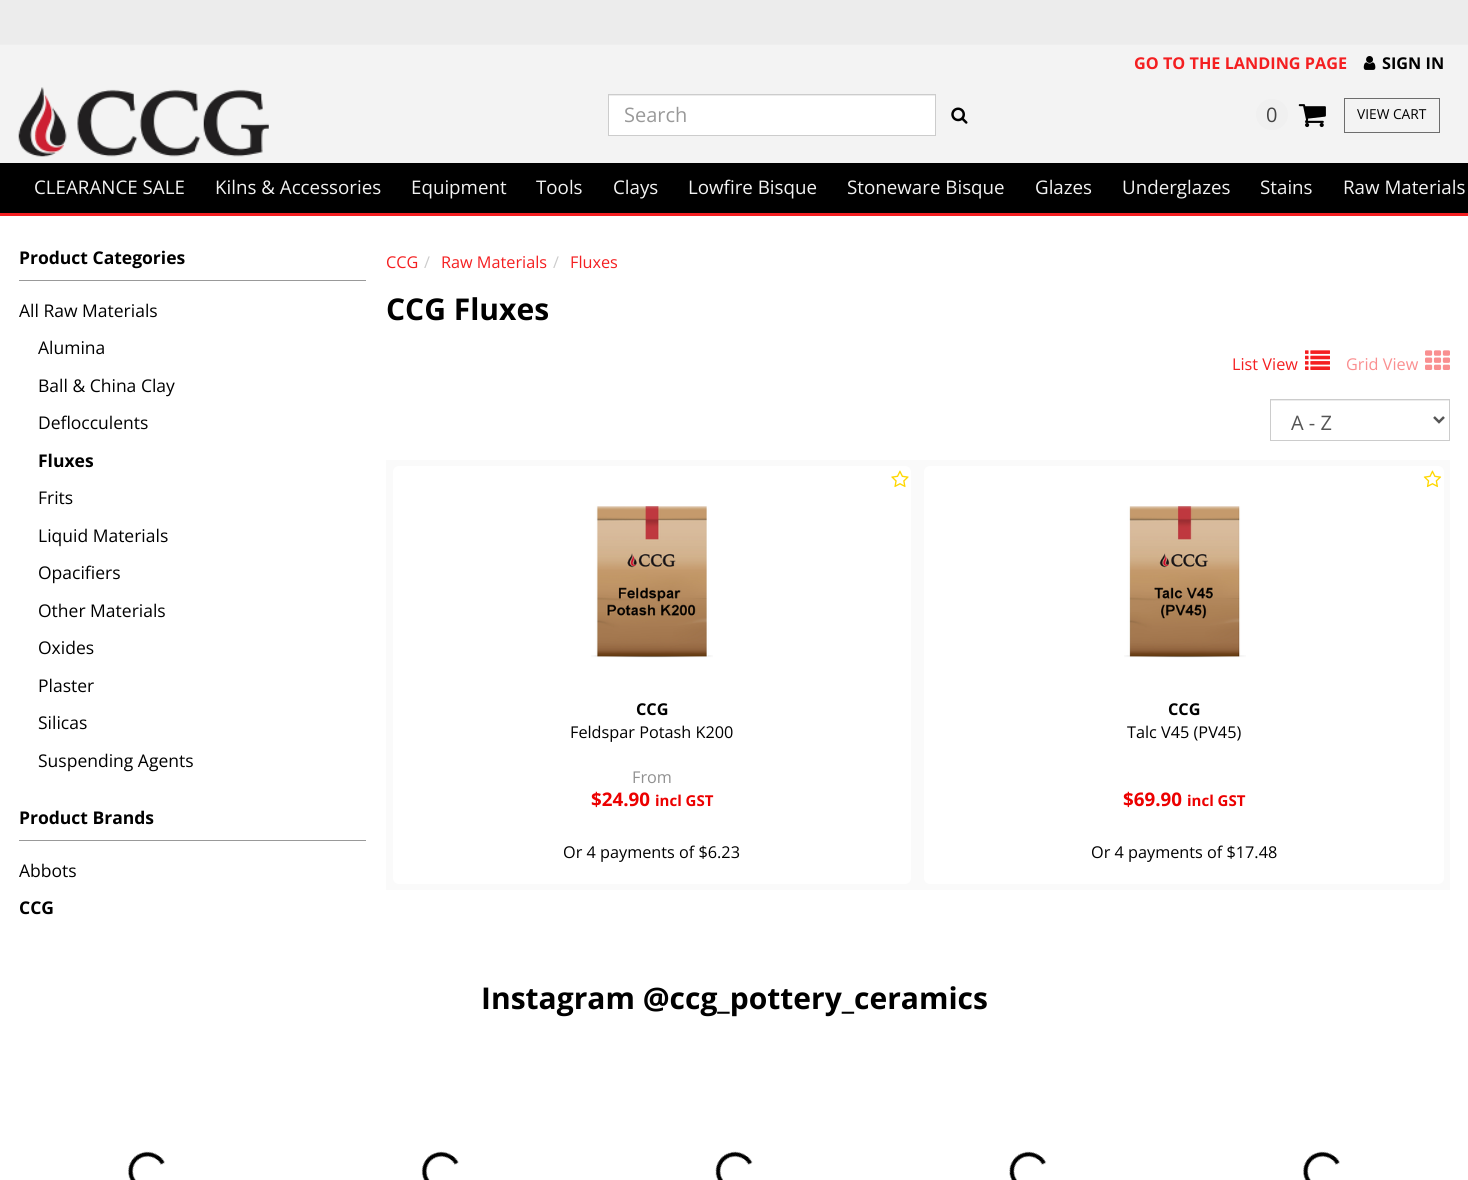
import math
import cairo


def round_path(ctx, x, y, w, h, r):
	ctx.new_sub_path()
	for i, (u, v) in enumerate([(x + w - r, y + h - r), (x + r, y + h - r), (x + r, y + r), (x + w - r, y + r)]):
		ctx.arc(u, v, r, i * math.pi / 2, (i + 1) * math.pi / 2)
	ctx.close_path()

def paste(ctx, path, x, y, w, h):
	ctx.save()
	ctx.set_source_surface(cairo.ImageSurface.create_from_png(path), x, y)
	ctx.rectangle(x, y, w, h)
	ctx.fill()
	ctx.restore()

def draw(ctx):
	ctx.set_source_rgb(1, 1, 1)
	ctx.paint()
	ctx.set_source_rgb(0.925, 0.925, 0.925)
	ctx.rectangle(0, 0, 1468, 44)
	ctx.fill()
	ctx.set_source_rgb(0.933, 0.933, 0.933)
	ctx.rectangle(0, 44, 1468, 1)
	ctx.fill()
	ctx.set_source_rgb(0.953, 0.953, 0.953)
	ctx.rectangle(0, 45, 1468, 118)
	ctx.fill()
	ctx.select_font_face('Open Sans', cairo.FONT_SLANT_NORMAL, cairo.FONT_WEIGHT_BOLD)
	ctx.set_font_size(16.25)
	ctx.set_source_rgb(0.957, 0.122, 0.129)
	ctx.move_to(1134, 69)
	ctx.show_text('GO TO THE LANDING PAGE')
	paste(ctx, 'media/1.png', 1363, 56, 13, 14)
	ctx.set_source_rgb(0, 0, 0)
	ctx.move_to(1382, 69)
	ctx.show_text('SIGN IN')
	paste(ctx, 'media/2.png', 18, 87, 251, 70)
	ctx.set_source_rgb(1, 1, 1)
	ctx.rectangle(609, 96, 326, 39)
	ctx.fill()
	ctx.set_source_rgb(0.925, 0.925, 0.925)
	ctx.rectangle(609, 95, 326, 1)
	ctx.fill()
	ctx.rectangle(608.5, 94.5, 327, 41)
	ctx.set_source_rgb(0.8, 0.8, 0.8)
	ctx.set_line_width(1)
	ctx.stroke()
	ctx.select_font_face('Open Sans')
	ctx.set_font_size(20)
	ctx.set_source_rgb(0.6, 0.6, 0.6)
	ctx.move_to(624, 122)
	ctx.show_text('Search')
	paste(ctx, 'media/3.png', 951, 107, 17, 17)
	ctx.set_source_rgb(0.941, 0.941, 0.941)
	round_path(ctx, 1256, 99, 32, 31, 15.5)
	ctx.fill()
	ctx.set_source_rgb(0.267, 0.267, 0.267)
	ctx.move_to(1266, 122)
	ctx.show_text('0')
	paste(ctx, 'media/4.png', 1298, 104, 28, 24)
	ctx.rectangle(1344.5, 98.5, 95, 34)
	ctx.set_source_rgb(0.427, 0.427, 0.427)
	ctx.stroke()
	ctx.set_font_size(13.75)
	ctx.set_source_rgb(0, 0, 0)
	ctx.move_to(1357, 119)
	ctx.show_text('VIEW CART')
	ctx.rectangle(0, 163, 1468, 50)
	ctx.fill()
	ctx.set_source_rgb(0.957, 0.122, 0.129)
	ctx.rectangle(0, 213, 1468, 3)
	ctx.fill()
	ctx.set_font_size(18.75)
	ctx.set_source_rgb(0.953, 0.953, 0.953)
	for x, y, s in [
		(34, 194, 'CLEARANCE SALE'),
		(215, 194, 'Kilns & Accessories'),
		(411, 194, 'Equipment'),
		(536, 194, 'Tools'),
		(613, 194, 'Clays'),
		(688, 194, 'Lowfire Bisque'),
		(847, 194, 'Stoneware Bisque'),
		(1035, 194, 'Glazes'),
		(1122, 194, 'Underglazes'),
		(1260, 194, 'Stains'),
		(1343, 194, 'Raw Materials'),
	]:
		ctx.move_to(x, y)
		ctx.show_text(s)
	ctx.set_source_rgb(0.6, 0.6, 0.6)
	ctx.rectangle(19, 280, 347, 1)
	ctx.fill()
	ctx.select_font_face('Open Sans', cairo.FONT_SLANT_NORMAL, cairo.FONT_WEIGHT_BOLD)
	ctx.set_font_size(17.5)
	ctx.set_source_rgb(0, 0, 0)
	ctx.move_to(19, 264)
	ctx.show_text('Product Categories')
	ctx.select_font_face('Open Sans')
	for x, y, s in [
		(19, 317, 'All Raw Materials'),
		(38, 354, 'Alumina'),
		(38, 392, 'Ball & China Clay'),
		(38, 429, 'Deflocculents'),
	]:
		ctx.move_to(x, y)
		ctx.show_text(s)
	ctx.select_font_face('Open Sans', cairo.FONT_SLANT_NORMAL, cairo.FONT_WEIGHT_BOLD)
	ctx.move_to(38, 467)
	ctx.show_text('Fluxes')
	ctx.select_font_face('Open Sans')
	for x, y, s in [
		(38, 504, 'Frits'),
		(38, 542, 'Liquid Materials'),
		(38, 579, 'Opacifiers'),
		(38, 617, 'Other Materials'),
		(38, 654, 'Oxides'),
		(38, 692, 'Plaster'),
		(38, 729, 'Silicas'),
		(38, 767, 'Suspending Agents'),
	]:
		ctx.move_to(x, y)
		ctx.show_text(s)
	ctx.set_source_rgb(0.6, 0.6, 0.6)
	ctx.rectangle(19, 840, 347, 1)
	ctx.fill()
	ctx.select_font_face('Open Sans', cairo.FONT_SLANT_NORMAL, cairo.FONT_WEIGHT_BOLD)
	ctx.set_source_rgb(0, 0, 0)
	ctx.move_to(19, 824)
	ctx.show_text('Product Brands')
	ctx.select_font_face('Open Sans')
	ctx.move_to(19, 877)
	ctx.show_text('Abbots')
	ctx.select_font_face('Open Sans', cairo.FONT_SLANT_NORMAL, cairo.FONT_WEIGHT_BOLD)
	ctx.move_to(19, 914)
	ctx.show_text('CCG')
	ctx.select_font_face('Open Sans')
	ctx.set_font_size(16.25)
	ctx.set_source_rgb(0.957, 0.122, 0.129)
	ctx.move_to(386, 268)
	ctx.show_text('CCG')
	ctx.set_source_rgb(0.8, 0.8, 0.8)
	ctx.move_to(424, 268)
	ctx.show_text('/')
	ctx.set_source_rgb(0.957, 0.122, 0.129)
	ctx.move_to(441, 268)
	ctx.show_text('Raw Materials')
	ctx.set_source_rgb(0.8, 0.8, 0.8)
	ctx.move_to(553, 268)
	ctx.show_text('/')
	ctx.set_source_rgb(0.957, 0.122, 0.129)
	ctx.move_to(570, 268)
	ctx.show_text('Fluxes')
	ctx.select_font_face('Open Sans', cairo.FONT_SLANT_NORMAL, cairo.FONT_WEIGHT_BOLD)
	ctx.set_font_size(30)
	ctx.set_source_rgb(0, 0, 0)
	ctx.move_to(386, 320)
	ctx.show_text('CCG Fluxes')
	ctx.select_font_face('Open Sans')
	ctx.set_font_size(16.25)
	ctx.set_source_rgb(0.957, 0.122, 0.129)
	ctx.move_to(1232, 370)
	ctx.show_text('List View')
	paste(ctx, 'media/5.png', 1305, 350, 25, 20)
	ctx.set_source_rgb(0.98, 0.561, 0.565)
	ctx.move_to(1346, 370)
	ctx.show_text('Grid View')
	paste(ctx, 'media/6.png', 1425, 350, 25, 20)
	ctx.set_source_rgb(0.925, 0.925, 0.925)
	ctx.rectangle(1271, 400, 178, 1)
	ctx.fill()
	ctx.rectangle(1270.5, 399.5, 179, 41)
	ctx.set_source_rgb(0.8, 0.8, 0.8)
	ctx.stroke()
	ctx.new_path()
	ctx.move_to(1434, 417)
	ctx.line_to(1439, 422)
	ctx.line_to(1444, 417)
	ctx.set_source_rgb(0.333, 0.333, 0.333)
	ctx.set_line_width(2.5)
	ctx.stroke()
	ctx.set_font_size(20)
	ctx.move_to(1291, 430)
	ctx.show_text('A - Z')
	ctx.set_source_rgb(0.98, 0.98, 0.98)
	ctx.rectangle(386, 460, 1064, 430)
	ctx.fill()
	ctx.set_source_rgb(1, 1, 1)
	round_path(ctx, 393, 466, 518, 418, 6)
	ctx.fill()
	paste(ctx, 'media/7.png', 891, 470, 18, 18)
	paste(ctx, 'media/8.png', 591, 506, 122, 152)
	ctx.select_font_face('Open Sans', cairo.FONT_SLANT_NORMAL, cairo.FONT_WEIGHT_BOLD)
	ctx.set_font_size(16.25)
	ctx.set_source_rgb(0, 0, 0)
	ctx.move_to(636, 715)
	ctx.show_text('CCG')
	ctx.select_font_face('Open Sans')
	ctx.move_to(570, 738)
	ctx.show_text('Feldspar Potash K200')
	ctx.set_source_rgb(0.565, 0.565, 0.565)
	ctx.move_to(632, 783)
	ctx.show_text('From')
	ctx.select_font_face('Open Sans', cairo.FONT_SLANT_NORMAL, cairo.FONT_WEIGHT_BOLD)
	ctx.set_font_size(18.75)
	ctx.set_source_rgb(0.922, 0, 0)
	ctx.move_to(591, 806)
	ctx.show_text('$24.90')
	ctx.set_font_size(15)
	ctx.move_to(655, 806)
	ctx.show_text('incl GST')
	ctx.select_font_face('Open Sans')
	ctx.set_font_size(16.25)
	ctx.set_source_rgb(0, 0, 0)
	ctx.move_to(563, 858)
	ctx.show_text('Or 4 payments of $6.23')
	ctx.set_source_rgb(1, 1, 1)
	round_path(ctx, 924, 466, 520, 418, 6)
	ctx.fill()
	paste(ctx, 'media/9.png', 1423, 470, 19, 18)
	paste(ctx, 'media/10.png', 1124, 506, 122, 152)
	ctx.select_font_face('Open Sans', cairo.FONT_SLANT_NORMAL, cairo.FONT_WEIGHT_BOLD)
	ctx.set_source_rgb(0, 0, 0)
	ctx.move_to(1168, 715)
	ctx.show_text('CCG')
	ctx.select_font_face('Open Sans')
	ctx.move_to(1127, 738)
	ctx.show_text('Talc V45 (PV45)')
	ctx.select_font_face('Open Sans', cairo.FONT_SLANT_NORMAL, cairo.FONT_WEIGHT_BOLD)
	ctx.set_font_size(18.75)
	ctx.set_source_rgb(0.922, 0, 0)
	ctx.move_to(1123, 806)
	ctx.show_text('$69.90')
	ctx.set_font_size(15)
	ctx.move_to(1187, 806)
	ctx.show_text('incl GST')
	ctx.select_font_face('Open Sans')
	ctx.set_font_size(16.25)
	ctx.set_source_rgb(0, 0, 0)
	ctx.move_to(1091, 858)
	ctx.show_text('Or 4 payments of $17.48')
	ctx.select_font_face('Open Sans', cairo.FONT_SLANT_NORMAL, cairo.FONT_WEIGHT_BOLD)
	ctx.set_font_size(30)
	ctx.move_to(481, 1009)
	ctx.show_text('Instagram @ccg_pottery_ceramics')
	paste(ctx, 'media/11.png', 128, 1151, 1212, 29)


surface = cairo.ImageSurface(cairo.FORMAT_RGB24, 1468, 1180)
ctx = cairo.Context(surface)
options = cairo.FontOptions()
options.set_hint_metrics(cairo.HINT_METRICS_OFF)
options.set_hint_style(cairo.HINT_STYLE_NONE)
ctx.set_font_options(options)
ctx.set_miter_limit(4)
draw(ctx)
surface.write_to_png('image.png')
